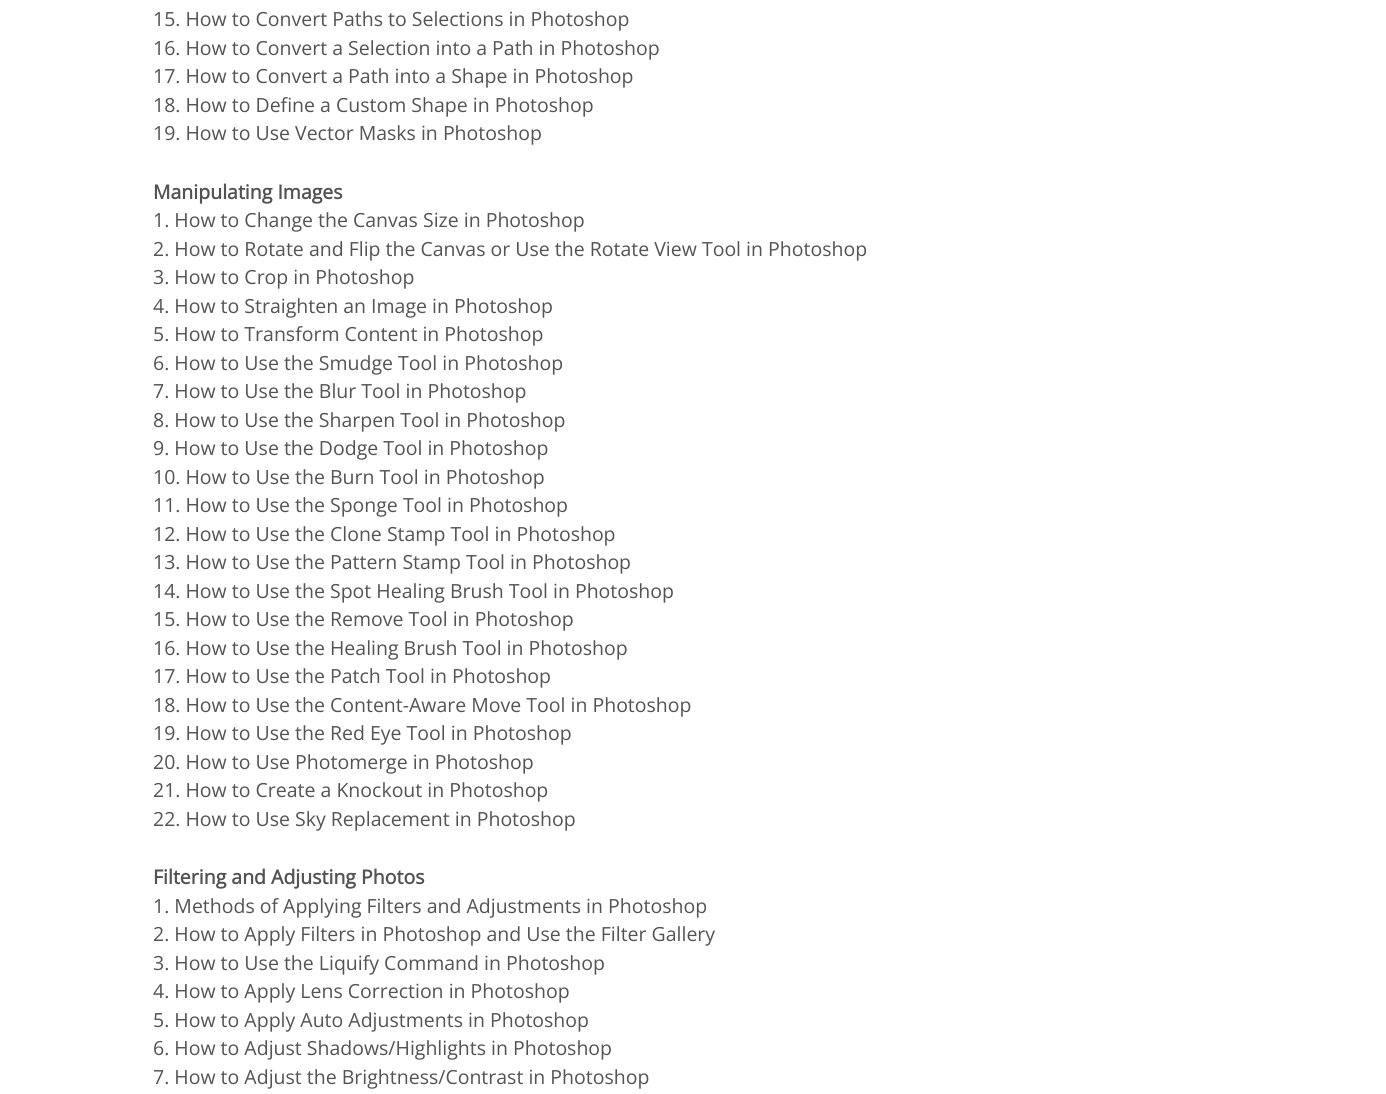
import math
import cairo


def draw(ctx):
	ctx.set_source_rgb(1, 1, 1)
	ctx.paint()
	ctx.select_font_face('Open Sans')
	ctx.set_font_size(19.5)
	ctx.set_source_rgb(0.325, 0.325, 0.325)
	for x, y, s in [
		(153, 26, '15. How to Convert Paths to Selections in Photoshop'),
		(153, 55, '16. How to Convert a Selection into a Path in Photoshop'),
		(153, 83, '17. How to Convert a Path into a Shape in Photoshop'),
		(153, 112, '18. How to Define a Custom Shape in Photoshop'),
		(153, 140, '19. How to Use Vector Masks in Photoshop'),
	]:
		ctx.move_to(x, y)
		ctx.show_text(s)
	ctx.select_font_face('Open Sans', cairo.FONT_SLANT_NORMAL, cairo.FONT_WEIGHT_BOLD)
	ctx.move_to(153, 199)
	ctx.show_text('Manipulating Images')
	ctx.select_font_face('Open Sans')
	for x, y, s in [
		(153, 227, '1. How to Change the Canvas Size in Photoshop'),
		(153, 256, '2. How to Rotate and Flip the Canvas or Use the Rotate View Tool in Photoshop'),
		(153, 284, '3. How to Crop in Photoshop'),
		(153, 313, '4. How to Straighten an Image in Photoshop'),
		(153, 341, '5. How to Transform Content in Photoshop'),
		(153, 370, '6. How to Use the Smudge Tool in Photoshop'),
		(153, 398, '7. How to Use the Blur Tool in Photoshop'),
		(153, 427, '8. How to Use the Sharpen Tool in Photoshop'),
		(153, 455, '9. How to Use the Dodge Tool in Photoshop'),
		(153, 484, '10. How to Use the Burn Tool in Photoshop'),
		(153, 512, '11. How to Use the Sponge Tool in Photoshop'),
		(153, 541, '12. How to Use the Clone Stamp Tool in Photoshop'),
		(153, 569, '13. How to Use the Pattern Stamp Tool in Photoshop'),
		(153, 598, '14. How to Use the Spot Healing Brush Tool in Photoshop'),
		(153, 626, '15. How to Use the Remove Tool in Photoshop'),
		(153, 655, '16. How to Use the Healing Brush Tool in Photoshop'),
		(153, 683, '17. How to Use the Patch Tool in Photoshop'),
		(153, 712, '18. How to Use the Content-Aware Move Tool in Photoshop'),
		(153, 740, '19. How to Use the Red Eye Tool in Photoshop'),
		(153, 769, '20. How to Use Photomerge in Photoshop'),
		(153, 797, '21. How to Create a Knockout in Photoshop'),
		(153, 826, '22. How to Use Sky Replacement in Photoshop'),
	]:
		ctx.move_to(x, y)
		ctx.show_text(s)
	ctx.select_font_face('Open Sans', cairo.FONT_SLANT_NORMAL, cairo.FONT_WEIGHT_BOLD)
	ctx.move_to(153, 884)
	ctx.show_text('Filtering and Adjusting Photos')
	ctx.select_font_face('Open Sans')
	for x, y, s in [
		(153, 913, '1. Methods of Applying Filters and Adjustments in Photoshop'),
		(153, 941, '2. How to Apply Filters in Photoshop and Use the Filter Gallery'),
		(153, 970, '3. How to Use the Liquify Command in Photoshop'),
		(153, 998, '4. How to Apply Lens Correction in Photoshop'),
		(153, 1027, '5. How to Apply Auto Adjustments in Photoshop'),
		(153, 1055, '6. How to Adjust Shadows/Highlights in Photoshop'),
		(153, 1084, '7. How to Adjust the Brightness/Contrast in Photoshop'),
	]:
		ctx.move_to(x, y)
		ctx.show_text(s)


surface = cairo.ImageSurface(cairo.FORMAT_RGB24, 1386, 1094)
ctx = cairo.Context(surface)
options = cairo.FontOptions()
options.set_hint_metrics(cairo.HINT_METRICS_OFF)
options.set_hint_style(cairo.HINT_STYLE_NONE)
ctx.set_font_options(options)
ctx.set_miter_limit(4)
draw(ctx)
surface.write_to_png('image.png')
